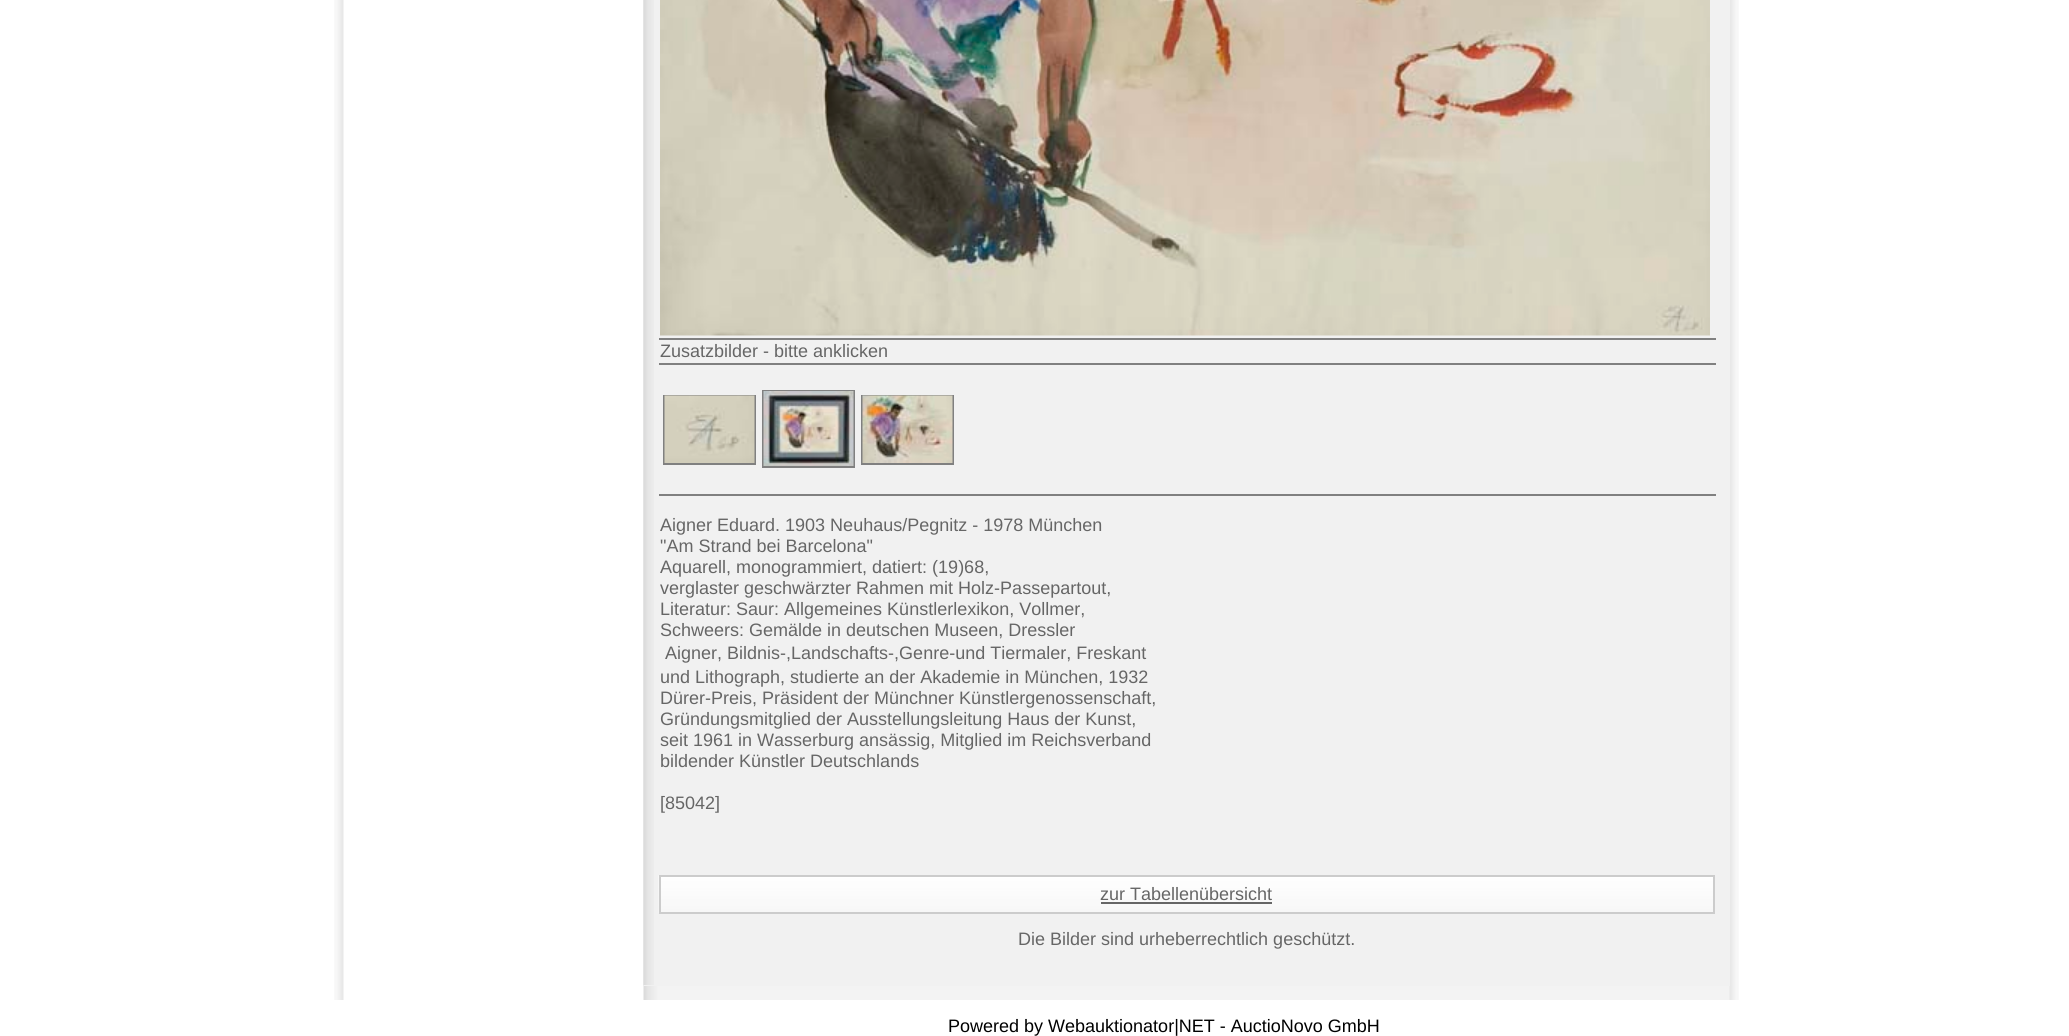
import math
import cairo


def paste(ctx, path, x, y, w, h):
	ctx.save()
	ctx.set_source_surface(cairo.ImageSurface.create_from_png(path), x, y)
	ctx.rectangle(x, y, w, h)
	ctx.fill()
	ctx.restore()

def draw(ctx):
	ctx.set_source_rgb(1, 1, 1)
	ctx.paint()
	paste(ctx, 'media/1.png', 334, 0, 1405, 1000)
	ctx.set_source_rgb(0.945, 0.945, 0.945)
	ctx.rectangle(644, 0, 1086, 986)
	ctx.fill()
	paste(ctx, 'media/2.png', 643, 0, 11, 985)
	paste(ctx, 'media/3.png', 660, 0, 1050, 336)
	ctx.set_source_rgb(0.502, 0.502, 0.502)
	ctx.rectangle(659, 338, 1057, 2)
	ctx.fill()
	ctx.select_font_face('Liberation Sans')
	ctx.set_font_size(18)
	ctx.set_source_rgb(0.4, 0.4, 0.4)
	ctx.move_to(660, 357)
	ctx.show_text('Zusatzbilder - bitte anklicken')
	ctx.set_source_rgb(0.502, 0.502, 0.502)
	ctx.rectangle(659, 363, 1057, 2)
	ctx.fill()
	ctx.rectangle(659, 494, 1057, 2)
	ctx.fill()
	ctx.rectangle(664, 396, 91, 68)
	ctx.stroke()
	paste(ctx, 'media/4.png', 664, 395, 91, 68)
	ctx.rectangle(763, 391, 91, 76)
	ctx.stroke()
	paste(ctx, 'media/5.png', 763, 391, 91, 75)
	ctx.rectangle(862, 396, 91, 68)
	ctx.stroke()
	paste(ctx, 'media/6.png', 862, 395, 91, 68)
	ctx.set_source_rgb(0.4, 0.4, 0.4)
	for x, y, s in [
		(660, 531, 'Aigner Eduard. 1903 Neuhaus/Pegnitz - 1978 München'),
		(660, 552, '"Am Strand bei Barcelona"'),
		(660, 573, 'Aquarell, monogrammiert, datiert: (19)68,'),
		(660, 594, 'verglaster geschwärzter Rahmen mit Holz-Passepartout,'),
		(660, 615, 'Literatur: Saur: Allgemeines Künstlerlexikon, Vollmer,'),
		(660, 636, 'Schweers: Gemälde in deutschen Museen, Dressler'),
		(665, 659, 'Aigner, Bildnis-,Landschafts-,Genre-und Tiermaler, Freskant'),
		(660, 683, 'und Lithograph, studierte an der Akademie in München, 1932'),
		(660, 704, 'Dürer-Preis, Präsident der Münchner Künstlergenossenschaft,'),
		(660, 725, 'Gründungsmitglied der Ausstellungsleitung Haus der Kunst,'),
		(660, 746, 'seit 1961 in Wasserburg ansässig, Mitglied im Reichsverband'),
		(660, 767, 'bildender Künstler Deutschlands'),
		(660, 809, '[85042]'),
	]:
		ctx.move_to(x, y)
		ctx.show_text(s)
	paste(ctx, 'media/7.png', 658, 875, 1055, 38)
	ctx.rectangle(660, 876, 1054, 37)
	ctx.set_source_rgb(0.8, 0.8, 0.8)
	ctx.stroke()
	ctx.set_source_rgb(0.4, 0.4, 0.4)
	ctx.move_to(1100, 900)
	ctx.show_text('zur Tabellenübersicht')
	ctx.rectangle(1101, 902, 171, 2)
	ctx.fill()
	ctx.move_to(1018, 945)
	ctx.show_text('Die Bilder sind urheberrechtlich geschützt.')
	ctx.set_source_rgb(0, 0, 0)
	ctx.move_to(948, 1032)
	ctx.show_text('Powered by Webauktionator|NET - AuctioNovo GmbH')


surface = cairo.ImageSurface(cairo.FORMAT_RGB24, 2069, 1036)
ctx = cairo.Context(surface)
options = cairo.FontOptions()
options.set_hint_metrics(cairo.HINT_METRICS_OFF)
options.set_hint_style(cairo.HINT_STYLE_NONE)
ctx.set_font_options(options)
ctx.set_miter_limit(4)
draw(ctx)
surface.write_to_png('image.png')
